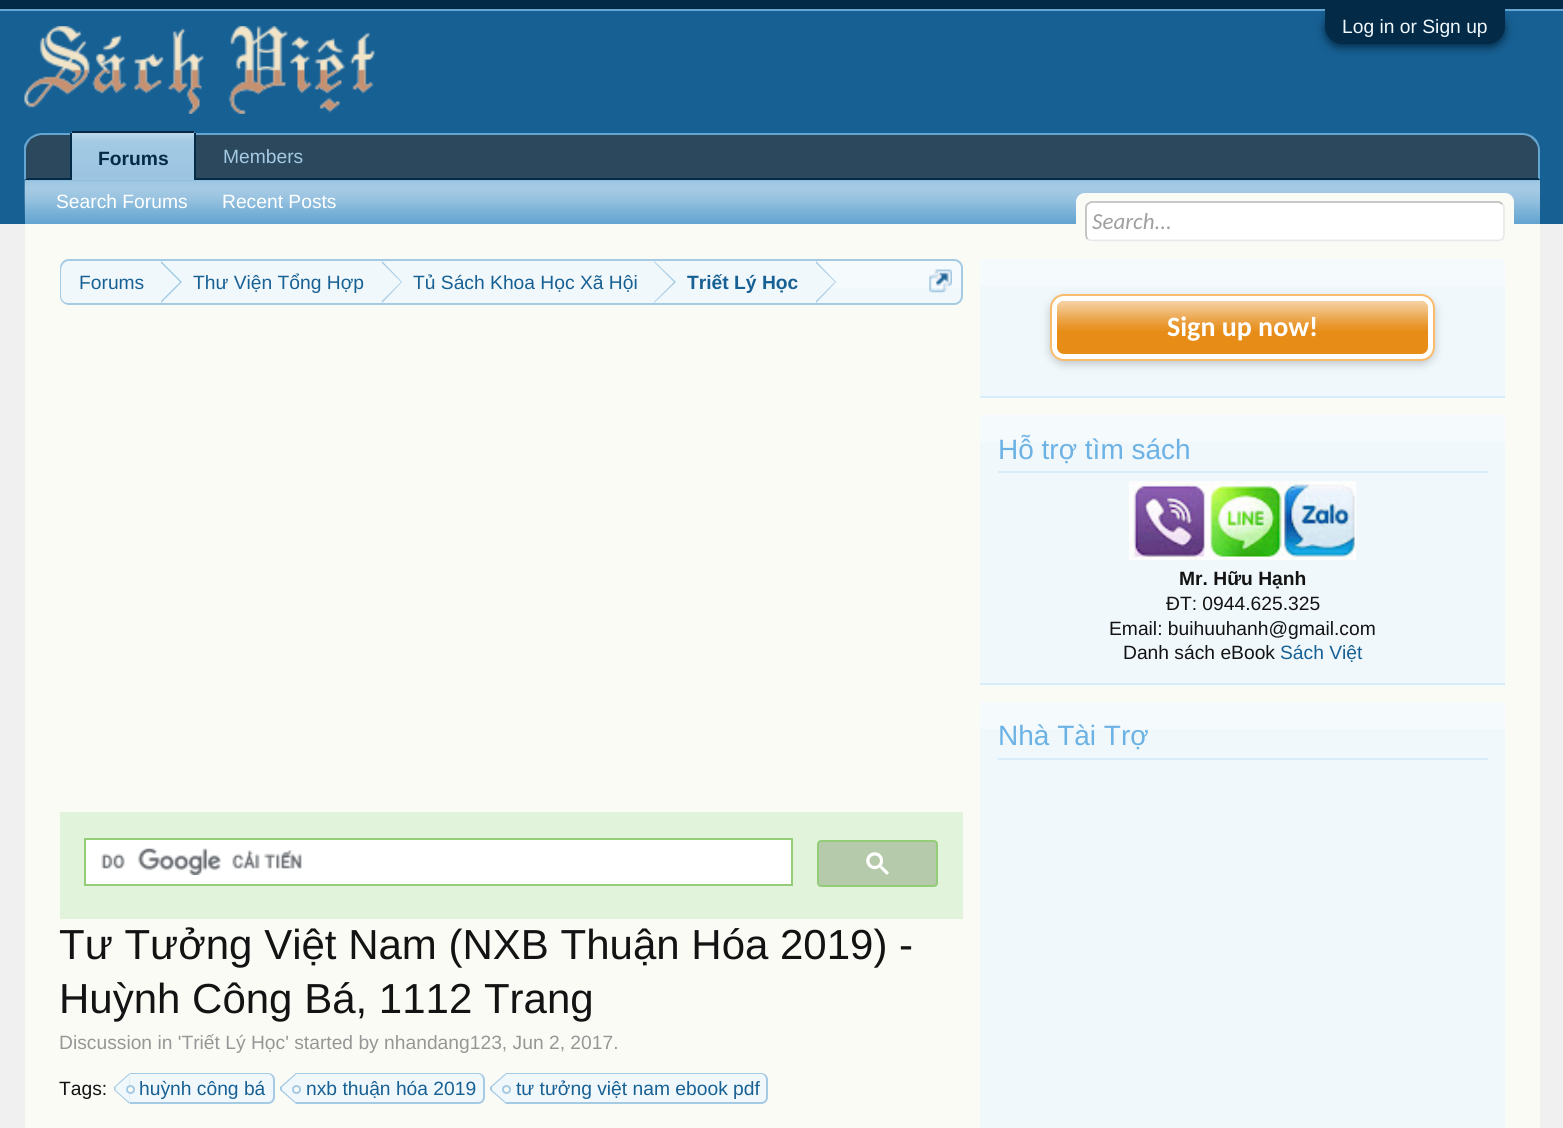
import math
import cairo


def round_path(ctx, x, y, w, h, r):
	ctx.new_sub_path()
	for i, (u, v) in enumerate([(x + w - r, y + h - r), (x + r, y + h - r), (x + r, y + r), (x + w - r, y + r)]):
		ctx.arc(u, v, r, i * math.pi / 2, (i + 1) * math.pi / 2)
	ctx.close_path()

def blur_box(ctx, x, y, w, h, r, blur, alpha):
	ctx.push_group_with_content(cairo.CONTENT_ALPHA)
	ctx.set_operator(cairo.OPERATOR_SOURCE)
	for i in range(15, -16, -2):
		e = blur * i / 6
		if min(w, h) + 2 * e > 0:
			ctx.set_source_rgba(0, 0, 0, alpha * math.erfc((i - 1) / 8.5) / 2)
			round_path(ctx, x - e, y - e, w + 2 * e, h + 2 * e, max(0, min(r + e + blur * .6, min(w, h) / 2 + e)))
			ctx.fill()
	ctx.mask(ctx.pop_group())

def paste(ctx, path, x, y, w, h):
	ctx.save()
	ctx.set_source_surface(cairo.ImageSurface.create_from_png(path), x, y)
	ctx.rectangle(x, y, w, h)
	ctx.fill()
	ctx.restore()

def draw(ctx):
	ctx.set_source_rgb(0.941, 0.941, 0.941)
	ctx.paint()
	ctx.set_source_rgb(0.012, 0.165, 0.275)
	ctx.rectangle(0, 0, 1563, 9)
	ctx.fill()
	ctx.set_source_rgb(0.396, 0.647, 0.82)
	ctx.rectangle(0, 9, 1563, 2)
	ctx.fill()
	ctx.set_source_rgb(0.09, 0.376, 0.576)
	ctx.rectangle(0, 11, 1563, 213)
	ctx.fill()
	ctx.set_source_rgb(0.012, 0.165, 0.275)
	blur_box(ctx, 1325, 12, 180, 35, 17.5, 4.5, 1)
	ctx.set_source_rgb(0.012, 0.165, 0.275)
	ctx.new_path()
	ctx.move_to(1325, 9)
	ctx.line_to(1505, 9)
	ctx.line_to(1505, 26.5)
	ctx.curve_to(1505, 36, 1497, 44, 1487.5, 44)
	ctx.line_to(1342.5, 44)
	ctx.curve_to(1333, 44, 1325, 36, 1325, 26.5)
	ctx.close_path()
	ctx.fill()
	ctx.select_font_face('Liberation Sans')
	ctx.set_font_size(19.25)
	ctx.set_source_rgb(0.941, 0.969, 0.988)
	ctx.move_to(1342, 33)
	ctx.show_text('Log in or Sign up')
	paste(ctx, 'media/1.png', 24, 26, 351, 88)
	ctx.set_source_rgb(0.169, 0.282, 0.361)
	ctx.new_path()
	ctx.move_to(43, 133)
	ctx.line_to(1522, 133)
	ctx.curve_to(1532, 133, 1540, 141, 1540, 151)
	ctx.line_to(1540, 180)
	ctx.line_to(25, 180)
	ctx.line_to(25, 151)
	ctx.curve_to(25, 141, 33, 133, 43, 133)
	ctx.close_path()
	ctx.fill()
	ctx.set_source_rgb(0.396, 0.647, 0.82)
	ctx.new_path()
	ctx.move_to(42, 133)
	ctx.curve_to(37, 133, 33, 135, 29, 138)
	ctx.line_to(31, 139)
	ctx.curve_to(34, 137, 38, 135, 42, 135)
	ctx.line_to(1522, 135)
	ctx.curve_to(1527, 135, 1531, 137, 1533, 140)
	ctx.line_to(1535, 138)
	ctx.curve_to(1532, 135, 1527, 133, 1522, 133)
	ctx.close_path()
	ctx.fill()
	ctx.new_path()
	ctx.move_to(1540, 180)
	ctx.line_to(1540, 150)
	ctx.curve_to(1540, 146, 1538, 141, 1535, 138)
	ctx.line_to(1533, 140)
	ctx.curve_to(1536, 142, 1538, 146, 1538, 150)
	ctx.line_to(1538, 178)
	ctx.close_path()
	ctx.fill()
	ctx.set_source_rgb(0.012, 0.165, 0.275)
	ctx.new_path()
	ctx.move_to(1540, 180)
	ctx.line_to(25, 180)
	ctx.line_to(27, 178)
	ctx.line_to(1538, 178)
	ctx.close_path()
	ctx.fill()
	ctx.set_source_rgb(0.396, 0.647, 0.82)
	ctx.new_path()
	ctx.move_to(24, 146)
	ctx.curve_to(25, 143, 27, 140, 29, 138)
	ctx.line_to(31, 139)
	ctx.curve_to(28, 142, 26, 146, 26, 150)
	ctx.line_to(26, 178)
	ctx.line_to(27, 178)
	ctx.line_to(24, 180)
	ctx.close_path()
	ctx.fill()
	ctx.set_source_rgb(0.647, 0.792, 0.894)
	ctx.move_to(223, 163)
	ctx.show_text('Members')
	ctx.set_source_rgb(0.396, 0.647, 0.82)
	ctx.new_path()
	ctx.move_to(74, 131)
	ctx.line_to(192, 131)
	ctx.curve_to(194, 131, 196, 133, 196, 135)
	ctx.line_to(196, 180)
	ctx.line_to(70, 180)
	ctx.line_to(70, 135)
	ctx.curve_to(70, 133, 72, 131, 74, 131)
	ctx.close_path()
	ctx.fill()
	paste(ctx, 'media/2.png', 72, 133, 122, 47)
	ctx.set_source_rgb(0.012, 0.165, 0.275)
	ctx.rectangle(72, 131, 122, 2)
	ctx.rectangle(194, 133, 2, 47)
	ctx.rectangle(70, 133, 2, 47)
	ctx.fill()
	ctx.select_font_face('Liberation Sans', cairo.FONT_SLANT_NORMAL, cairo.FONT_WEIGHT_BOLD)
	ctx.move_to(98, 165)
	ctx.show_text('Forums')
	ctx.set_source_rgb(0.396, 0.647, 0.82)
	ctx.rectangle(25, 180, 1515, 44)
	ctx.fill()
	paste(ctx, 'media/3.png', 24, 180, 1516, 42)
	ctx.select_font_face('Liberation Sans')
	ctx.set_source_rgb(1, 1, 1)
	ctx.move_to(56, 208)
	ctx.show_text('Search Forums')
	ctx.move_to(222, 208)
	ctx.show_text('Recent Posts')
	ctx.set_source_rgb(0.984, 0.984, 0.961)
	ctx.rectangle(25, 224, 1515, 904)
	ctx.fill()
	round_path(ctx, 1076, 193, 438, 49, 9)
	ctx.fill()
	ctx.rectangle(1076, 201, 438, 1)
	ctx.fill()
	ctx.set_source_rgb(1, 1, 1)
	round_path(ctx, 1085, 201, 420, 41, 7)
	ctx.fill()
	ctx.new_path()
	ctx.move_to(1502.5, 204)
	ctx.curve_to(1503.5, 205, 1504, 206.5, 1504, 208)
	ctx.line_to(1504, 234.5)
	ctx.curve_to(1504, 236, 1503.5, 237.5, 1502.5, 239)
	ctx.curve_to(1501, 240, 1499.5, 240.5, 1498, 240.5)
	ctx.line_to(1092, 240.5)
	ctx.curve_to(1090.5, 240.5, 1089, 240, 1087.5, 239)
	ctx.set_source_rgb(0.914, 0.914, 0.914)
	ctx.set_line_width(1.8)
	ctx.stroke()
	ctx.new_path()
	ctx.move_to(1087.5, 239)
	ctx.curve_to(1086.5, 237.5, 1086, 236, 1086, 234.5)
	ctx.line_to(1086, 208)
	ctx.curve_to(1086, 206.5, 1086.5, 205, 1087.5, 204)
	ctx.curve_to(1089, 203, 1090.5, 202, 1092, 202)
	ctx.line_to(1498, 202)
	ctx.curve_to(1499.5, 202, 1501, 203, 1502.5, 204)
	ctx.set_source_rgb(0.753, 0.753, 0.753)
	ctx.stroke()
	ctx.select_font_face('Carlito', cairo.FONT_SLANT_ITALIC)
	ctx.set_font_size(23)
	ctx.set_source_rgb(0.627, 0.627, 0.627)
	ctx.move_to(1092, 229)
	ctx.show_text('Search...')
	ctx.set_source_rgb(0.941, 0.969, 0.988)
	round_path(ctx, 60, 259, 903, 46, 9)
	ctx.fill()
	paste(ctx, 'media/4.png', 60, 261, 902, 27)
	round_path(ctx, 61, 260, 901, 44, 8)
	ctx.set_source_rgb(0.647, 0.792, 0.894)
	ctx.set_line_width(2)
	ctx.stroke()
	ctx.save()
	round_path(ctx, 61, 261, 900, 42, 7)
	ctx.clip()
	ctx.set_source_rgb(0.941, 0.969, 0.988)
	ctx.new_path()
	ctx.move_to(70, 261)
	ctx.line_to(161, 261)
	ctx.line_to(161, 305)
	ctx.line_to(70, 305)
	ctx.curve_to(65, 305, 61, 301, 61, 296)
	ctx.line_to(61, 270)
	ctx.curve_to(61, 265, 65, 261, 70, 261)
	ctx.close_path()
	ctx.fill()
	ctx.restore()
	ctx.select_font_face('Liberation Sans')
	ctx.set_font_size(19.25)
	ctx.set_source_rgb(0.09, 0.376, 0.576)
	ctx.move_to(79, 289)
	ctx.show_text('Forums')
	ctx.set_source_rgb(0.941, 0.969, 0.988)
	ctx.rectangle(161, 261, 655, 27)
	ctx.fill()
	ctx.set_source_rgb(0.647, 0.792, 0.894)
	ctx.new_path()
	ctx.move_to(161, 303)
	ctx.line_to(161, 261)
	ctx.line_to(182, 282)
	ctx.close_path()
	ctx.fill()
	ctx.set_source_rgb(0.941, 0.969, 0.988)
	ctx.new_path()
	ctx.move_to(159, 303)
	ctx.line_to(159, 261)
	ctx.line_to(180, 282)
	ctx.close_path()
	ctx.fill()
	ctx.set_source_rgb(0.09, 0.376, 0.576)
	ctx.move_to(193, 289)
	ctx.show_text('Thư Viện Tổng Hợp')
	ctx.set_source_rgb(0.647, 0.792, 0.894)
	ctx.new_path()
	ctx.move_to(382, 303)
	ctx.line_to(382, 261)
	ctx.line_to(402, 282)
	ctx.close_path()
	ctx.fill()
	ctx.set_source_rgb(0.941, 0.969, 0.988)
	ctx.new_path()
	ctx.move_to(380, 303)
	ctx.line_to(380, 261)
	ctx.line_to(401, 282)
	ctx.close_path()
	ctx.fill()
	ctx.set_source_rgb(0.09, 0.376, 0.576)
	ctx.move_to(413, 289)
	ctx.show_text('Tủ Sách Khoa Học Xã Hội')
	ctx.set_source_rgb(0.647, 0.792, 0.894)
	ctx.new_path()
	ctx.move_to(654, 303)
	ctx.line_to(654, 261)
	ctx.line_to(676, 282)
	ctx.close_path()
	ctx.fill()
	ctx.set_source_rgb(0.941, 0.969, 0.988)
	ctx.new_path()
	ctx.move_to(653, 303)
	ctx.line_to(653, 261)
	ctx.line_to(674, 282)
	ctx.close_path()
	ctx.fill()
	ctx.select_font_face('Liberation Sans', cairo.FONT_SLANT_NORMAL, cairo.FONT_WEIGHT_BOLD)
	ctx.set_source_rgb(0.09, 0.376, 0.576)
	ctx.move_to(687, 289)
	ctx.show_text('Triết Lý Học')
	ctx.set_source_rgb(0.647, 0.792, 0.894)
	ctx.new_path()
	ctx.move_to(816, 303)
	ctx.line_to(816, 261)
	ctx.line_to(836, 282)
	ctx.close_path()
	ctx.fill()
	ctx.set_source_rgb(0.941, 0.969, 0.988)
	ctx.new_path()
	ctx.move_to(814, 303)
	ctx.line_to(814, 261)
	ctx.line_to(835, 282)
	ctx.close_path()
	ctx.fill()
	paste(ctx, 'media/5.png', 929, 269, 23, 24)
	ctx.set_source_rgb(0.882, 0.953, 0.855)
	ctx.rectangle(60, 812, 903, 107)
	ctx.fill()
	ctx.set_source_rgb(1, 1, 1)
	ctx.rectangle(85, 839, 707, 46)
	ctx.fill_preserve()
	ctx.set_source_rgb(0.58, 0.8, 0.478)
	ctx.stroke()
	paste(ctx, 'media/6.png', 101, 848, 201, 27)
	ctx.set_source_rgb(0.71, 0.788, 0.671)
	round_path(ctx, 818, 841, 119, 45, 3)
	ctx.fill_preserve()
	ctx.set_source_rgb(0.58, 0.8, 0.478)
	ctx.stroke()
	paste(ctx, 'media/7.png', 866, 852, 23, 23)
	ctx.select_font_face('Liberation Sans')
	ctx.set_font_size(42)
	ctx.set_source_rgb(0.078, 0.078, 0.078)
	ctx.move_to(59, 959)
	ctx.show_text('Tư Tưởng Việt Nam (NXB Thuận Hóa 2019) -')
	ctx.move_to(59, 1013)
	ctx.show_text('Huỳnh Công Bá, 1112 Trang')
	ctx.set_font_size(19.25)
	ctx.set_source_rgb(0.588, 0.588, 0.588)
	ctx.move_to(59, 1049)
	ctx.show_text('Discussion in \'Triết Lý Học\' started by nhandang123, Jun 2, 2017.')
	ctx.set_source_rgb(0.078, 0.078, 0.078)
	ctx.move_to(59, 1095)
	ctx.show_text('Tags:')
	ctx.set_source_rgb(0.941, 0.969, 0.988)
	ctx.new_path()
	ctx.move_to(130, 1073)
	ctx.line_to(268, 1073)
	ctx.curve_to(272, 1073, 275, 1076, 275, 1080)
	ctx.line_to(275, 1097)
	ctx.curve_to(275, 1101, 272, 1104, 268, 1104)
	ctx.line_to(130, 1104)
	ctx.close_path()
	ctx.fill()
	ctx.set_source_rgb(0.647, 0.792, 0.894)
	ctx.set_fill_rule(cairo.FILL_RULE_EVEN_ODD)
	ctx.new_path()
	ctx.move_to(130, 1073)
	ctx.line_to(268, 1073)
	ctx.curve_to(272, 1073, 275, 1076, 275, 1080)
	ctx.line_to(275, 1097)
	ctx.curve_to(275, 1101, 272, 1104, 268, 1104)
	ctx.line_to(130, 1104)
	ctx.close_path()
	ctx.move_to(130, 1074)
	ctx.line_to(268, 1074)
	ctx.curve_to(271, 1074, 273, 1077, 273, 1080)
	ctx.line_to(273, 1097)
	ctx.curve_to(273, 1100, 271, 1102, 268, 1102)
	ctx.line_to(130, 1102)
	ctx.close_path()
	ctx.fill()
	ctx.set_fill_rule(cairo.FILL_RULE_WINDING)
	ctx.new_path()
	ctx.move_to(129.5, 1073)
	ctx.line_to(129.5, 1104)
	ctx.line_to(114, 1090)
	ctx.line_to(114, 1087)
	ctx.close_path()
	ctx.fill()
	ctx.set_source_rgb(0.941, 0.969, 0.988)
	ctx.new_path()
	ctx.move_to(129.5, 1074.5)
	ctx.line_to(129.5, 1102.5)
	ctx.line_to(115.5, 1090)
	ctx.line_to(115.5, 1087)
	ctx.close_path()
	ctx.fill()
	ctx.set_source_rgb(0.984, 0.984, 0.961)
	ctx.arc(130.5, 1089.5, 3.5, 0, 2 * math.pi)
	ctx.fill_preserve()
	ctx.set_source_rgb(0.647, 0.792, 0.894)
	ctx.stroke()
	ctx.set_source_rgb(0.09, 0.376, 0.576)
	ctx.move_to(139, 1095)
	ctx.show_text('huỳnh công bá')
	ctx.set_source_rgb(0.941, 0.969, 0.988)
	ctx.new_path()
	ctx.move_to(296, 1073)
	ctx.line_to(478, 1073)
	ctx.curve_to(482, 1073, 485, 1076, 485, 1080)
	ctx.line_to(485, 1097)
	ctx.curve_to(485, 1101, 482, 1104, 478, 1104)
	ctx.line_to(296, 1104)
	ctx.close_path()
	ctx.fill()
	ctx.set_source_rgb(0.647, 0.792, 0.894)
	ctx.set_fill_rule(cairo.FILL_RULE_EVEN_ODD)
	ctx.new_path()
	ctx.move_to(296, 1073)
	ctx.line_to(478, 1073)
	ctx.curve_to(482, 1073, 485, 1076, 485, 1080)
	ctx.line_to(485, 1097)
	ctx.curve_to(485, 1101, 482, 1104, 478, 1104)
	ctx.line_to(296, 1104)
	ctx.close_path()
	ctx.move_to(296, 1074)
	ctx.line_to(478, 1074)
	ctx.curve_to(481, 1074, 483, 1077, 483, 1080)
	ctx.line_to(483, 1097)
	ctx.curve_to(483, 1100, 481, 1102, 478, 1102)
	ctx.line_to(296, 1102)
	ctx.close_path()
	ctx.fill()
	ctx.set_fill_rule(cairo.FILL_RULE_WINDING)
	ctx.new_path()
	ctx.move_to(296, 1073)
	ctx.line_to(296, 1104)
	ctx.line_to(280, 1090)
	ctx.line_to(280, 1087)
	ctx.close_path()
	ctx.fill()
	ctx.set_source_rgb(0.941, 0.969, 0.988)
	ctx.new_path()
	ctx.move_to(296, 1074.5)
	ctx.line_to(296, 1102.5)
	ctx.line_to(282, 1090)
	ctx.line_to(282, 1087)
	ctx.close_path()
	ctx.fill()
	ctx.set_source_rgb(0.984, 0.984, 0.961)
	ctx.arc(296.5, 1089.5, 3.5, 0, 2 * math.pi)
	ctx.fill_preserve()
	ctx.set_source_rgb(0.647, 0.792, 0.894)
	ctx.stroke()
	ctx.set_source_rgb(0.09, 0.376, 0.576)
	ctx.move_to(306, 1095)
	ctx.show_text('nxb thuận hóa 2019')
	ctx.set_source_rgb(0.941, 0.969, 0.988)
	ctx.new_path()
	ctx.move_to(506, 1073)
	ctx.line_to(761, 1073)
	ctx.curve_to(765, 1073, 768, 1076, 768, 1080)
	ctx.line_to(768, 1097)
	ctx.curve_to(768, 1101, 765, 1104, 761, 1104)
	ctx.line_to(506, 1104)
	ctx.close_path()
	ctx.fill()
	ctx.set_source_rgb(0.647, 0.792, 0.894)
	ctx.set_fill_rule(cairo.FILL_RULE_EVEN_ODD)
	ctx.new_path()
	ctx.move_to(506, 1073)
	ctx.line_to(761, 1073)
	ctx.curve_to(765, 1073, 768, 1076, 768, 1080)
	ctx.line_to(768, 1097)
	ctx.curve_to(768, 1101, 765, 1104, 761, 1104)
	ctx.line_to(506, 1104)
	ctx.close_path()
	ctx.move_to(506, 1074)
	ctx.line_to(761, 1074)
	ctx.curve_to(764, 1074, 766, 1077, 766, 1080)
	ctx.line_to(766, 1097)
	ctx.curve_to(766, 1100, 764, 1102, 761, 1102)
	ctx.line_to(506, 1102)
	ctx.close_path()
	ctx.fill()
	ctx.set_fill_rule(cairo.FILL_RULE_WINDING)
	ctx.new_path()
	ctx.move_to(506, 1073)
	ctx.line_to(506, 1104)
	ctx.line_to(490, 1090)
	ctx.line_to(490, 1087)
	ctx.close_path()
	ctx.fill()
	ctx.set_source_rgb(0.941, 0.969, 0.988)
	ctx.new_path()
	ctx.move_to(506, 1074.5)
	ctx.line_to(506, 1102.5)
	ctx.line_to(492, 1090)
	ctx.line_to(492, 1087)
	ctx.close_path()
	ctx.fill()
	ctx.set_source_rgb(0.984, 0.984, 0.961)
	ctx.arc(506.5, 1089.5, 3.5, 0, 2 * math.pi)
	ctx.fill_preserve()
	ctx.set_source_rgb(0.647, 0.792, 0.894)
	ctx.stroke()
	ctx.set_source_rgb(0.09, 0.376, 0.576)
	ctx.move_to(516, 1095)
	ctx.show_text('tư tưởng việt nam ebook pdf')
	ctx.set_source_rgb(0.941, 0.969, 0.988)
	ctx.rectangle(980, 259, 525, 137)
	ctx.fill()
	paste(ctx, 'media/8.png', 980, 259, 525, 27)
	ctx.set_source_rgb(0.843, 0.929, 0.988)
	ctx.rectangle(980, 396, 525, 2)
	ctx.fill()
	ctx.set_source_rgb(0, 0, 0)
	blur_box(ctx, 1050, 298, 385, 66, 14, 4.5, 0.2)
	ctx.set_source_rgb(1, 1, 1)
	round_path(ctx, 1051, 295, 383, 65, 13)
	ctx.fill_preserve()
	ctx.set_source_rgb(0.976, 0.737, 0.427)
	ctx.stroke()
	ctx.set_source_rgb(0.902, 0.549, 0.09)
	round_path(ctx, 1057, 301, 371, 53, 7)
	ctx.fill()
	paste(ctx, 'media/9.png', 1057, 301, 371, 30)
	ctx.select_font_face('Carlito', cairo.FONT_SLANT_NORMAL, cairo.FONT_WEIGHT_BOLD)
	ctx.set_font_size(28)
	ctx.set_source_rgb(1, 1, 1)
	ctx.move_to(1167, 336)
	ctx.show_text('Sign up now!')
	ctx.set_source_rgb(0.941, 0.969, 0.988)
	ctx.rectangle(980, 415, 525, 268)
	ctx.fill()
	paste(ctx, 'media/10.png', 980, 415, 525, 27)
	ctx.set_source_rgb(0.843, 0.929, 0.988)
	ctx.rectangle(980, 683, 525, 2)
	ctx.fill()
	ctx.rectangle(998, 471, 490, 2)
	ctx.fill()
	ctx.select_font_face('Liberation Sans')
	ctx.set_source_rgb(0.424, 0.698, 0.894)
	ctx.move_to(998, 459)
	ctx.show_text('Hỗ trợ tìm sách')
	paste(ctx, 'media/11.png', 1129, 481, 227, 79)
	ctx.select_font_face('Liberation Sans', cairo.FONT_SLANT_NORMAL, cairo.FONT_WEIGHT_BOLD)
	ctx.set_font_size(19.25)
	ctx.set_source_rgb(0.078, 0.078, 0.078)
	ctx.move_to(1179, 585)
	ctx.show_text('Mr. Hữu Hạnh')
	ctx.select_font_face('Liberation Sans')
	for x, y, s in [
		(1166, 610, 'ĐT: 0944.625.325'),
		(1109, 635, 'Email: buihuuhanh@gmail.com'),
		(1123, 659, 'Danh sách eBook'),
	]:
		ctx.move_to(x, y)
		ctx.show_text(s)
	ctx.set_source_rgb(0.09, 0.376, 0.576)
	ctx.move_to(1280, 659)
	ctx.show_text('Sách Việt')
	ctx.set_source_rgb(0.941, 0.969, 0.988)
	ctx.rectangle(980, 702, 525, 426)
	ctx.fill()
	paste(ctx, 'media/12.png', 980, 702, 525, 27)
	ctx.set_source_rgb(0.843, 0.929, 0.988)
	ctx.rectangle(998, 758, 490, 2)
	ctx.fill()
	ctx.set_font_size(28)
	ctx.set_source_rgb(0.424, 0.698, 0.894)
	ctx.move_to(998, 745)
	ctx.show_text('Nhà Tài Trợ')


surface = cairo.ImageSurface(cairo.FORMAT_RGB24, 1563, 1128)
ctx = cairo.Context(surface)
options = cairo.FontOptions()
options.set_hint_metrics(cairo.HINT_METRICS_OFF)
options.set_hint_style(cairo.HINT_STYLE_NONE)
ctx.set_font_options(options)
ctx.set_miter_limit(4)
draw(ctx)
surface.write_to_png('image.png')
